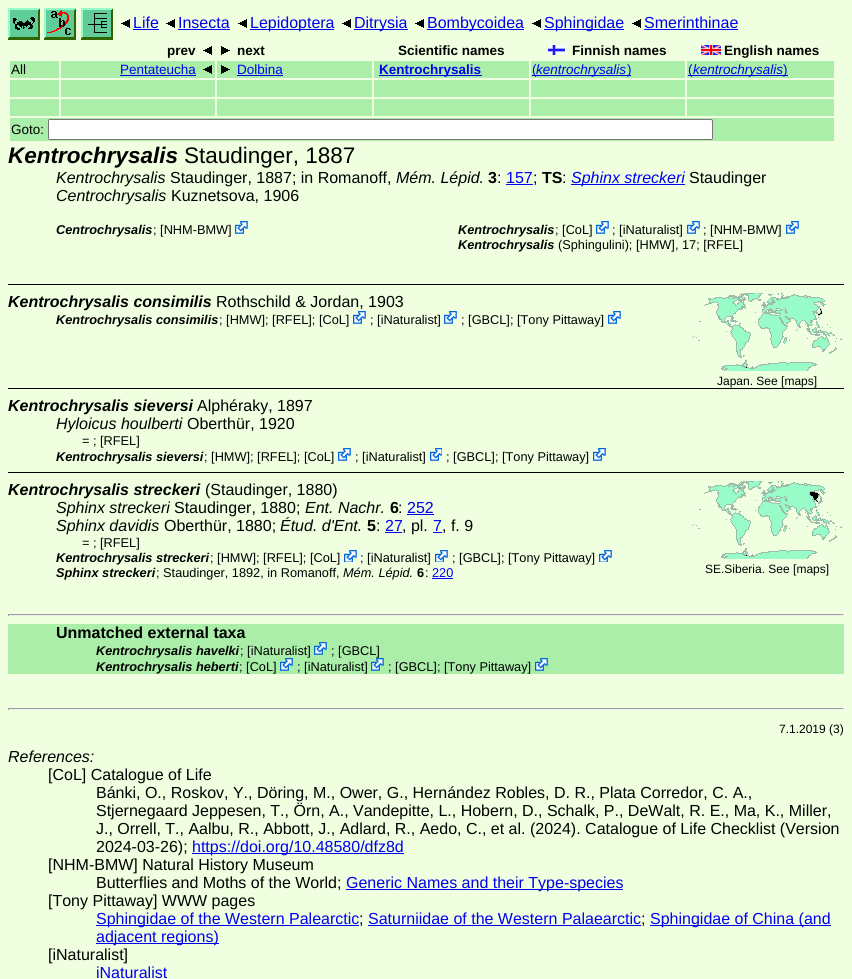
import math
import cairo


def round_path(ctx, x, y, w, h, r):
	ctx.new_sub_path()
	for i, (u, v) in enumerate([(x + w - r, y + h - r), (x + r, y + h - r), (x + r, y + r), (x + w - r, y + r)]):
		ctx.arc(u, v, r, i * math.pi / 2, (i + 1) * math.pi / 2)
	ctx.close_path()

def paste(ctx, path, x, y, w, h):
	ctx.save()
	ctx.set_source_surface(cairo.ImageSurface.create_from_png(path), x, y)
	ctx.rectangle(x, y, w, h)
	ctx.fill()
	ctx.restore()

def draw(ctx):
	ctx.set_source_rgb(0.941, 1, 0.878)
	ctx.paint()
	paste(ctx, 'media/1.png', 8, 8, 32, 32)
	paste(ctx, 'media/2.png', 44, 8, 32, 32)
	paste(ctx, 'media/3.png', 81, 8, 32, 32)
	paste(ctx, 'media/4.png', 121, 19, 9, 9)
	ctx.select_font_face('Liberation Sans')
	ctx.set_font_size(16)
	ctx.set_source_rgb(0, 0, 0.933)
	ctx.move_to(133, 28)
	ctx.show_text('Life')
	ctx.rectangle(133, 29, 26, 1)
	ctx.fill()
	paste(ctx, 'media/4.png', 166, 19, 9, 9)
	ctx.move_to(178, 28)
	ctx.show_text('Insecta')
	ctx.rectangle(178, 29, 52, 1)
	ctx.fill()
	paste(ctx, 'media/4.png', 238, 19, 9, 9)
	ctx.rectangle(250, 29, 84, 1)
	ctx.fill()
	ctx.move_to(250, 28)
	ctx.show_text('Lepidoptera')
	paste(ctx, 'media/4.png', 342, 19, 9, 9)
	ctx.rectangle(354, 29, 54, 1)
	ctx.fill()
	ctx.move_to(354, 28)
	ctx.show_text('Ditrysia')
	paste(ctx, 'media/4.png', 415, 19, 9, 9)
	ctx.rectangle(427, 29, 97, 1)
	ctx.fill()
	ctx.move_to(427, 28)
	ctx.show_text('Bombycoidea')
	paste(ctx, 'media/4.png', 532, 19, 9, 9)
	ctx.rectangle(544, 29, 80, 1)
	ctx.fill()
	ctx.move_to(544, 28)
	ctx.show_text('Sphingidae')
	paste(ctx, 'media/4.png', 632, 19, 9, 9)
	ctx.move_to(644, 28)
	ctx.show_text('Smerinthinae')
	ctx.rectangle(644, 29, 94, 1)
	ctx.fill()
	ctx.select_font_face('Liberation Sans', cairo.FONT_SLANT_NORMAL, cairo.FONT_WEIGHT_BOLD)
	ctx.set_font_size(13.5)
	ctx.set_source_rgb(0, 0, 0)
	ctx.move_to(167, 55)
	ctx.show_text('prev')
	paste(ctx, 'media/4.png', 203, 46, 9, 9)
	paste(ctx, 'media/5.png', 221, 46, 9, 9)
	ctx.move_to(237, 55)
	ctx.show_text('next')
	ctx.move_to(398, 55)
	ctx.show_text('Scientific names')
	paste(ctx, 'media/6.png', 548, 45, 17, 10)
	ctx.move_to(572, 55)
	ctx.show_text('Finnish names')
	paste(ctx, 'media/7.png', 701, 45, 20, 10)
	ctx.move_to(724, 55)
	ctx.show_text('English names')
	ctx.set_source_rgb(0.667, 0.933, 0.667)
	ctx.rectangle(10, 61, 49, 17)
	ctx.fill()
	ctx.select_font_face('Liberation Sans')
	ctx.set_source_rgb(0, 0, 0)
	ctx.move_to(11, 74)
	ctx.show_text('All')
	ctx.set_source_rgb(0.667, 0.933, 0.667)
	ctx.rectangle(61, 61, 154, 17)
	ctx.fill()
	ctx.set_source_rgb(0, 0, 0.933)
	ctx.move_to(120, 74)
	ctx.show_text('Pentateucha')
	ctx.rectangle(120, 75, 76, 1)
	ctx.fill()
	paste(ctx, 'media/8.png', 203, 65, 9, 9)
	ctx.set_source_rgb(0.667, 0.933, 0.667)
	ctx.rectangle(217, 61, 155, 17)
	ctx.fill()
	paste(ctx, 'media/9.png', 221, 65, 9, 9)
	ctx.set_source_rgb(0, 0, 0.933)
	ctx.move_to(237, 74)
	ctx.show_text('Dolbina')
	ctx.rectangle(237, 75, 46, 1)
	ctx.fill()
	ctx.set_source_rgb(0.667, 0.933, 0.667)
	ctx.rectangle(374, 61, 155, 17)
	ctx.fill()
	ctx.set_source_rgb(0, 0, 0.933)
	ctx.rectangle(379, 75, 103, 1)
	ctx.fill()
	ctx.select_font_face('Liberation Sans', cairo.FONT_SLANT_NORMAL, cairo.FONT_WEIGHT_BOLD)
	ctx.move_to(379, 74)
	ctx.show_text('Kentrochrysalis')
	ctx.set_source_rgb(0.667, 0.933, 0.667)
	ctx.rectangle(531, 61, 154, 17)
	ctx.fill()
	ctx.set_source_rgb(0, 0, 0.933)
	ctx.rectangle(532, 75, 99, 1)
	ctx.fill()
	ctx.select_font_face('Liberation Sans')
	ctx.move_to(532, 74)
	ctx.show_text('(')
	ctx.select_font_face('Liberation Sans', cairo.FONT_SLANT_ITALIC)
	ctx.move_to(536, 74)
	ctx.show_text('kentrochrysalis')
	ctx.select_font_face('Liberation Sans')
	ctx.move_to(627, 74)
	ctx.show_text(')')
	ctx.set_source_rgb(0.667, 0.933, 0.667)
	ctx.rectangle(687, 61, 147, 17)
	ctx.fill()
	ctx.set_source_rgb(0, 0, 0.933)
	ctx.rectangle(688, 75, 95, 1)
	ctx.fill()
	ctx.move_to(688, 74)
	ctx.show_text('(')
	ctx.select_font_face('Liberation Sans', cairo.FONT_SLANT_ITALIC)
	ctx.move_to(693, 74)
	ctx.show_text('kentrochrysalis')
	ctx.rectangle(783, 75, 5, 1)
	ctx.fill()
	ctx.select_font_face('Liberation Sans')
	ctx.move_to(783, 74)
	ctx.show_text(')')
	ctx.set_source_rgb(0.667, 0.933, 0.667)
	ctx.rectangle(10, 80, 49, 17)
	ctx.rectangle(61, 80, 154, 17)
	ctx.rectangle(217, 80, 155, 17)
	ctx.rectangle(374, 80, 155, 17)
	ctx.rectangle(531, 80, 154, 17)
	ctx.rectangle(687, 80, 147, 17)
	ctx.rectangle(10, 99, 49, 17)
	ctx.rectangle(61, 99, 154, 17)
	ctx.rectangle(217, 99, 155, 17)
	ctx.rectangle(374, 99, 155, 17)
	ctx.rectangle(531, 99, 154, 17)
	ctx.rectangle(687, 99, 147, 17)
	ctx.rectangle(10, 118, 824, 23)
	ctx.fill()
	ctx.set_source_rgb(0, 0, 0)
	ctx.move_to(11, 134)
	ctx.show_text('Goto:')
	ctx.set_source_rgb(1, 1, 1)
	round_path(ctx, 48.5, 119.5, 664, 20, 1.5)
	ctx.fill_preserve()
	ctx.set_source_rgb(0.463, 0.463, 0.463)
	ctx.set_line_width(1)
	ctx.stroke()
	ctx.select_font_face('Liberation Sans', cairo.FONT_SLANT_ITALIC, cairo.FONT_WEIGHT_BOLD)
	ctx.set_font_size(22.5)
	ctx.set_source_rgb(0, 0, 0)
	ctx.move_to(8, 163)
	ctx.show_text('Kentrochrysalis')
	ctx.select_font_face('Liberation Sans')
	ctx.move_to(184, 163)
	ctx.show_text('Staudinger, 1887')
	ctx.select_font_face('Liberation Sans', cairo.FONT_SLANT_ITALIC)
	ctx.set_font_size(16)
	ctx.move_to(56, 183)
	ctx.show_text('Kentrochrysalis')
	ctx.select_font_face('Liberation Sans')
	ctx.move_to(170, 183)
	ctx.show_text('Staudinger, 1887; in Romanoff,')
	ctx.select_font_face('Liberation Sans', cairo.FONT_SLANT_ITALIC)
	ctx.move_to(396, 183)
	ctx.show_text('Mém. Lépid.')
	ctx.select_font_face('Liberation Sans', cairo.FONT_SLANT_NORMAL, cairo.FONT_WEIGHT_BOLD)
	ctx.move_to(488, 183)
	ctx.show_text('3')
	ctx.select_font_face('Liberation Sans')
	ctx.move_to(497, 183)
	ctx.show_text(':')
	ctx.set_source_rgb(0, 0, 0.933)
	ctx.move_to(506, 183)
	ctx.show_text('157')
	ctx.rectangle(506, 184, 27, 1)
	ctx.fill()
	ctx.set_source_rgb(0, 0, 0)
	ctx.move_to(533, 183)
	ctx.show_text(';')
	ctx.select_font_face('Liberation Sans', cairo.FONT_SLANT_NORMAL, cairo.FONT_WEIGHT_BOLD)
	ctx.move_to(542, 183)
	ctx.show_text('TS')
	ctx.select_font_face('Liberation Sans')
	ctx.move_to(562, 183)
	ctx.show_text(':')
	ctx.set_source_rgb(0, 0, 0.933)
	ctx.rectangle(571, 184, 114, 1)
	ctx.fill()
	ctx.select_font_face('Liberation Sans', cairo.FONT_SLANT_ITALIC)
	ctx.move_to(571, 183)
	ctx.show_text('Sphinx streckeri')
	ctx.select_font_face('Liberation Sans')
	ctx.set_source_rgb(0, 0, 0)
	ctx.move_to(689, 183)
	ctx.show_text('Staudinger')
	ctx.select_font_face('Liberation Sans', cairo.FONT_SLANT_ITALIC)
	ctx.move_to(56, 201)
	ctx.show_text('Centrochrysalis')
	ctx.select_font_face('Liberation Sans')
	ctx.move_to(171, 201)
	ctx.show_text('Kuznetsova, 1906')
	ctx.select_font_face('Liberation Sans', cairo.FONT_SLANT_ITALIC, cairo.FONT_WEIGHT_BOLD)
	ctx.set_font_size(12.75)
	ctx.move_to(56, 234)
	ctx.show_text('Centrochrysalis')
	ctx.select_font_face('Liberation Sans')
	ctx.move_to(153, 234)
	ctx.show_text('; [NHM-BMW]')
	paste(ctx, 'media/10.png', 235, 221, 13, 13)
	ctx.select_font_face('Liberation Sans', cairo.FONT_SLANT_ITALIC, cairo.FONT_WEIGHT_BOLD)
	ctx.move_to(458, 234)
	ctx.show_text('Kentrochrysalis')
	ctx.select_font_face('Liberation Sans')
	ctx.move_to(555, 234)
	ctx.show_text('; [CoL]')
	paste(ctx, 'media/10.png', 596, 221, 13, 13)
	ctx.move_to(612, 234)
	ctx.show_text('; [iNaturalist]')
	paste(ctx, 'media/10.png', 687, 221, 13, 13)
	ctx.move_to(703, 234)
	ctx.show_text('; [NHM-BMW]')
	paste(ctx, 'media/10.png', 786, 221, 13, 13)
	ctx.select_font_face('Liberation Sans', cairo.FONT_SLANT_ITALIC, cairo.FONT_WEIGHT_BOLD)
	ctx.move_to(458, 249)
	ctx.show_text('Kentrochrysalis')
	ctx.select_font_face('Liberation Sans')
	ctx.move_to(558, 249)
	ctx.show_text('(Sphingulini); [HMW], 17; [RFEL]')
	ctx.rectangle(8, 284, 836, 1)
	ctx.fill()
	ctx.select_font_face('Liberation Sans', cairo.FONT_SLANT_ITALIC, cairo.FONT_WEIGHT_BOLD)
	ctx.set_font_size(16)
	ctx.move_to(8, 307)
	ctx.show_text('Kentrochrysalis consimilis')
	ctx.select_font_face('Liberation Sans')
	ctx.move_to(216, 307)
	ctx.show_text('Rothschild & Jordan, 1903')
	ctx.select_font_face('Liberation Sans', cairo.FONT_SLANT_ITALIC, cairo.FONT_WEIGHT_BOLD)
	ctx.set_font_size(12.75)
	ctx.move_to(56, 324)
	ctx.show_text('Kentrochrysalis consimilis')
	ctx.select_font_face('Liberation Sans')
	ctx.move_to(219, 324)
	ctx.show_text('; [HMW]; [RFEL]; [CoL]')
	paste(ctx, 'media/10.png', 353, 311, 13, 13)
	ctx.move_to(370, 324)
	ctx.show_text('; [iNaturalist]')
	paste(ctx, 'media/10.png', 444, 311, 13, 13)
	ctx.move_to(461, 324)
	ctx.show_text('; [GBCL]; [Tony Pittaway]')
	paste(ctx, 'media/10.png', 608, 311, 13, 13)
	paste(ctx, 'media/11.png', 692, 293, 150, 78)
	ctx.set_font_size(12)
	ctx.move_to(717, 385)
	ctx.show_text('Japan. See [maps]')
	ctx.rectangle(8, 388, 836, 1)
	ctx.fill()
	ctx.select_font_face('Liberation Sans', cairo.FONT_SLANT_ITALIC, cairo.FONT_WEIGHT_BOLD)
	ctx.set_font_size(16)
	ctx.move_to(8, 411)
	ctx.show_text('Kentrochrysalis sieversi')
	ctx.select_font_face('Liberation Sans')
	ctx.move_to(197, 411)
	ctx.show_text('Alphéraky, 1897')
	ctx.select_font_face('Liberation Sans', cairo.FONT_SLANT_ITALIC)
	ctx.move_to(56, 429)
	ctx.show_text('Hyloicus houlberti')
	ctx.select_font_face('Liberation Sans')
	ctx.move_to(187, 429)
	ctx.show_text('Oberthür, 1920')
	ctx.set_font_size(12.75)
	ctx.move_to(82, 445)
	ctx.show_text('= ; [RFEL]')
	ctx.select_font_face('Liberation Sans', cairo.FONT_SLANT_ITALIC, cairo.FONT_WEIGHT_BOLD)
	ctx.move_to(56, 461)
	ctx.show_text('Kentrochrysalis sieversi')
	ctx.select_font_face('Liberation Sans')
	ctx.move_to(204, 461)
	ctx.show_text('; [HMW]; [RFEL]; [CoL]')
	paste(ctx, 'media/10.png', 338, 448, 13, 13)
	ctx.move_to(355, 461)
	ctx.show_text('; [iNaturalist]')
	paste(ctx, 'media/12.png', 430, 448, 12, 13)
	ctx.move_to(446, 461)
	ctx.show_text('; [GBCL]; [Tony Pittaway]')
	paste(ctx, 'media/10.png', 593, 448, 13, 13)
	ctx.rectangle(8, 472, 836, 1)
	ctx.fill()
	ctx.select_font_face('Liberation Sans', cairo.FONT_SLANT_ITALIC, cairo.FONT_WEIGHT_BOLD)
	ctx.set_font_size(16)
	ctx.move_to(8, 495)
	ctx.show_text('Kentrochrysalis streckeri')
	ctx.select_font_face('Liberation Sans')
	ctx.move_to(205, 495)
	ctx.show_text('(Staudinger, 1880)')
	ctx.select_font_face('Liberation Sans', cairo.FONT_SLANT_ITALIC)
	ctx.move_to(56, 513)
	ctx.show_text('Sphinx streckeri')
	ctx.select_font_face('Liberation Sans')
	ctx.move_to(174, 513)
	ctx.show_text('Staudinger, 1880;')
	ctx.select_font_face('Liberation Sans', cairo.FONT_SLANT_ITALIC)
	ctx.move_to(305, 513)
	ctx.show_text('Ent. Nachr.')
	ctx.select_font_face('Liberation Sans', cairo.FONT_SLANT_NORMAL, cairo.FONT_WEIGHT_BOLD)
	ctx.move_to(390, 513)
	ctx.show_text('6')
	ctx.select_font_face('Liberation Sans')
	ctx.move_to(398, 513)
	ctx.show_text(':')
	ctx.set_source_rgb(0, 0, 0.933)
	ctx.move_to(407, 513)
	ctx.show_text('252')
	ctx.rectangle(407, 514, 27, 1)
	ctx.fill()
	ctx.select_font_face('Liberation Sans', cairo.FONT_SLANT_ITALIC)
	ctx.set_source_rgb(0, 0, 0)
	ctx.move_to(56, 531)
	ctx.show_text('Sphinx davidis')
	ctx.select_font_face('Liberation Sans')
	ctx.move_to(164, 531)
	ctx.show_text('Oberthür, 1880;')
	ctx.select_font_face('Liberation Sans', cairo.FONT_SLANT_ITALIC)
	ctx.move_to(280, 531)
	ctx.show_text('Étud. d\'Ent.')
	ctx.select_font_face('Liberation Sans', cairo.FONT_SLANT_NORMAL, cairo.FONT_WEIGHT_BOLD)
	ctx.move_to(367, 531)
	ctx.show_text('5')
	ctx.select_font_face('Liberation Sans')
	ctx.move_to(376, 531)
	ctx.show_text(':')
	ctx.set_source_rgb(0, 0, 0.933)
	ctx.move_to(385, 531)
	ctx.show_text('27')
	ctx.rectangle(385, 532, 17, 1)
	ctx.fill()
	ctx.set_source_rgb(0, 0, 0)
	ctx.move_to(402, 531)
	ctx.show_text(', pl.')
	ctx.set_source_rgb(0, 0, 0.933)
	ctx.move_to(433, 531)
	ctx.show_text('7')
	ctx.rectangle(433, 532, 9, 1)
	ctx.fill()
	ctx.set_source_rgb(0, 0, 0)
	ctx.move_to(442, 531)
	ctx.show_text(', f. 9')
	ctx.set_font_size(12.75)
	ctx.move_to(82, 547)
	ctx.show_text('= ; [RFEL]')
	ctx.select_font_face('Liberation Sans', cairo.FONT_SLANT_ITALIC, cairo.FONT_WEIGHT_BOLD)
	ctx.move_to(56, 562)
	ctx.show_text('Kentrochrysalis streckeri')
	ctx.select_font_face('Liberation Sans')
	ctx.move_to(210, 562)
	ctx.show_text('; [HMW]; [RFEL]; [CoL]')
	paste(ctx, 'media/13.png', 344, 550, 13, 12)
	ctx.move_to(360, 562)
	ctx.show_text('; [iNaturalist]')
	paste(ctx, 'media/13.png', 435, 550, 13, 12)
	ctx.move_to(452, 562)
	ctx.show_text('; [GBCL]; [Tony Pittaway]')
	paste(ctx, 'media/13.png', 599, 550, 13, 12)
	ctx.select_font_face('Liberation Sans', cairo.FONT_SLANT_ITALIC, cairo.FONT_WEIGHT_BOLD)
	ctx.move_to(56, 577)
	ctx.show_text('Sphinx streckeri')
	ctx.select_font_face('Liberation Sans')
	ctx.move_to(156, 577)
	ctx.show_text('; Staudinger, 1892, in Romanoff,')
	ctx.select_font_face('Liberation Sans', cairo.FONT_SLANT_ITALIC)
	ctx.move_to(343, 577)
	ctx.show_text('Mém. Lépid.')
	ctx.select_font_face('Liberation Sans', cairo.FONT_SLANT_NORMAL, cairo.FONT_WEIGHT_BOLD)
	ctx.move_to(417, 577)
	ctx.show_text('6')
	ctx.select_font_face('Liberation Sans')
	ctx.move_to(425, 577)
	ctx.show_text(':')
	ctx.set_source_rgb(0, 0, 0.933)
	ctx.move_to(432, 577)
	ctx.show_text('220')
	ctx.rectangle(432, 578, 21, 1)
	ctx.fill()
	paste(ctx, 'media/14.png', 692, 481, 150, 78)
	ctx.set_font_size(12)
	ctx.set_source_rgb(0, 0, 0)
	ctx.move_to(705, 573)
	ctx.show_text('SE.Siberia. See [maps]')
	ctx.set_source_rgb(0.624, 0.624, 0.624)
	ctx.rectangle(8, 614, 836, 1)
	ctx.fill()
	ctx.set_source_rgb(0.933, 0.933, 0.933)
	ctx.rectangle(843, 614, 1, 2)
	ctx.rectangle(8, 615, 836, 1)
	ctx.fill()
	ctx.set_source_rgb(0.624, 0.624, 0.624)
	ctx.rectangle(8, 614, 1, 2)
	ctx.fill()
	ctx.set_source_rgb(0.667, 0.933, 0.667)
	ctx.rectangle(8, 624, 836, 50)
	ctx.fill()
	ctx.select_font_face('Liberation Sans', cairo.FONT_SLANT_NORMAL, cairo.FONT_WEIGHT_BOLD)
	ctx.set_font_size(16)
	ctx.set_source_rgb(0, 0, 0)
	ctx.move_to(56, 638)
	ctx.show_text('Unmatched external taxa')
	ctx.select_font_face('Liberation Sans', cairo.FONT_SLANT_ITALIC, cairo.FONT_WEIGHT_BOLD)
	ctx.set_font_size(12.75)
	ctx.move_to(96, 655)
	ctx.show_text('Kentrochrysalis havelki')
	ctx.select_font_face('Liberation Sans')
	ctx.move_to(240, 655)
	ctx.show_text('; [iNaturalist]')
	paste(ctx, 'media/15.png', 314, 642, 13, 13)
	ctx.move_to(331, 655)
	ctx.show_text('; [GBCL]')
	ctx.select_font_face('Liberation Sans', cairo.FONT_SLANT_ITALIC, cairo.FONT_WEIGHT_BOLD)
	ctx.move_to(96, 671)
	ctx.show_text('Kentrochrysalis heberti')
	ctx.select_font_face('Liberation Sans')
	ctx.move_to(239, 671)
	ctx.show_text('; [CoL]')
	paste(ctx, 'media/15.png', 280, 658, 13, 13)
	ctx.move_to(297, 671)
	ctx.show_text('; [iNaturalist]')
	paste(ctx, 'media/15.png', 371, 658, 13, 13)
	ctx.move_to(388, 671)
	ctx.show_text('; [GBCL]; [Tony Pittaway]')
	paste(ctx, 'media/15.png', 535, 658, 13, 13)
	ctx.set_source_rgb(0.624, 0.624, 0.624)
	ctx.rectangle(8, 708, 836, 1)
	ctx.fill()
	ctx.set_source_rgb(0.933, 0.933, 0.933)
	ctx.rectangle(843, 708, 1, 2)
	ctx.rectangle(8, 709, 836, 1)
	ctx.fill()
	ctx.set_source_rgb(0.624, 0.624, 0.624)
	ctx.rectangle(8, 708, 1, 2)
	ctx.fill()
	ctx.set_font_size(12)
	ctx.set_source_rgb(0, 0, 0)
	ctx.move_to(779, 733)
	ctx.show_text('7.1.2019 (3)')
	ctx.select_font_face('Liberation Sans', cairo.FONT_SLANT_ITALIC)
	ctx.set_font_size(16)
	ctx.move_to(8, 762)
	ctx.show_text('References:')
	ctx.select_font_face('Liberation Sans')
	for x, y, s in [
		(48, 780, '[CoL] Catalogue of Life'),
		(96, 798, 'Bánki, O., Roskov, Y., Döring, M., Ower, G., Hernández Robles, D. R., Plata Corredor, C. A.,'),
		(96, 816, 'Stjernegaard Jeppesen, T., Örn, A., Vandepitte, L., Hobern, D., Schalk, P., DeWalt, R. E., Ma, K., Miller,'),
		(96, 834, 'J., Orrell, T., Aalbu, R., Abbott, J., Adlard, R., Aedo, C., et al. (2024). Catalogue of Life Checklist (Version'),
		(96, 852, '2024-03-26);'),
	]:
		ctx.move_to(x, y)
		ctx.show_text(s)
	ctx.set_source_rgb(0, 0, 0.933)
	ctx.rectangle(192, 853, 212, 1)
	ctx.fill()
	ctx.move_to(192, 852)
	ctx.show_text('https://doi.org/10.48580/dfz8d')
	ctx.set_source_rgb(0, 0, 0)
	ctx.move_to(48, 870)
	ctx.show_text('[NHM-BMW] Natural History Museum')
	ctx.move_to(96, 888)
	ctx.show_text('Butterflies and Moths of the World;')
	ctx.set_source_rgb(0, 0, 0.933)
	ctx.rectangle(346, 889, 277, 1)
	ctx.fill()
	ctx.move_to(346, 888)
	ctx.show_text('Generic Names and their Type-species')
	ctx.set_source_rgb(0, 0, 0)
	ctx.move_to(48, 906)
	ctx.show_text('[Tony Pittaway] WWW pages')
	ctx.set_source_rgb(0, 0, 0.933)
	ctx.rectangle(96, 925, 263, 1)
	ctx.fill()
	ctx.move_to(96, 924)
	ctx.show_text('Sphingidae of the Western Palearctic')
	ctx.set_source_rgb(0, 0, 0)
	ctx.move_to(359, 924)
	ctx.show_text(';')
	ctx.set_source_rgb(0, 0, 0.933)
	ctx.move_to(368, 924)
	ctx.show_text('Saturniidae of the Western Palaearctic')
	ctx.rectangle(368, 925, 273, 1)
	ctx.fill()
	ctx.set_source_rgb(0, 0, 0)
	ctx.move_to(641, 924)
	ctx.show_text(';')
	ctx.set_source_rgb(0, 0, 0.933)
	ctx.rectangle(650, 925, 181, 1)
	ctx.fill()
	ctx.move_to(650, 924)
	ctx.show_text('Sphingidae of China (and')
	ctx.rectangle(96, 943, 123, 1)
	ctx.fill()
	ctx.move_to(96, 942)
	ctx.show_text('adjacent regions)')
	ctx.set_source_rgb(0, 0, 0)
	ctx.move_to(48, 960)
	ctx.show_text('[iNaturalist]')
	ctx.set_source_rgb(0, 0, 0.933)
	ctx.move_to(96, 978)
	ctx.show_text('iNaturalist')


surface = cairo.ImageSurface(cairo.FORMAT_RGB24, 852, 979)
ctx = cairo.Context(surface)
options = cairo.FontOptions()
options.set_hint_metrics(cairo.HINT_METRICS_OFF)
options.set_hint_style(cairo.HINT_STYLE_NONE)
ctx.set_font_options(options)
ctx.set_miter_limit(4)
draw(ctx)
surface.write_to_png('image.png')
